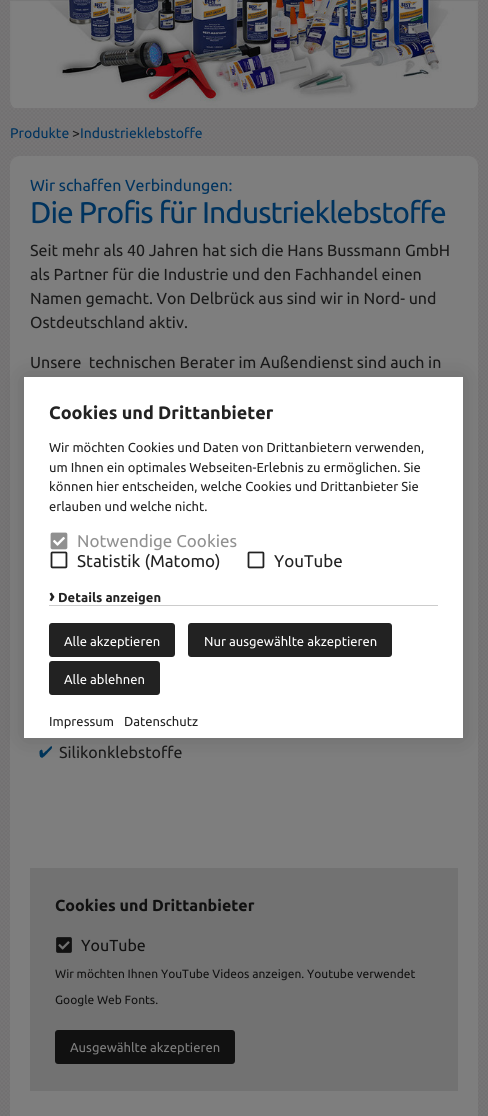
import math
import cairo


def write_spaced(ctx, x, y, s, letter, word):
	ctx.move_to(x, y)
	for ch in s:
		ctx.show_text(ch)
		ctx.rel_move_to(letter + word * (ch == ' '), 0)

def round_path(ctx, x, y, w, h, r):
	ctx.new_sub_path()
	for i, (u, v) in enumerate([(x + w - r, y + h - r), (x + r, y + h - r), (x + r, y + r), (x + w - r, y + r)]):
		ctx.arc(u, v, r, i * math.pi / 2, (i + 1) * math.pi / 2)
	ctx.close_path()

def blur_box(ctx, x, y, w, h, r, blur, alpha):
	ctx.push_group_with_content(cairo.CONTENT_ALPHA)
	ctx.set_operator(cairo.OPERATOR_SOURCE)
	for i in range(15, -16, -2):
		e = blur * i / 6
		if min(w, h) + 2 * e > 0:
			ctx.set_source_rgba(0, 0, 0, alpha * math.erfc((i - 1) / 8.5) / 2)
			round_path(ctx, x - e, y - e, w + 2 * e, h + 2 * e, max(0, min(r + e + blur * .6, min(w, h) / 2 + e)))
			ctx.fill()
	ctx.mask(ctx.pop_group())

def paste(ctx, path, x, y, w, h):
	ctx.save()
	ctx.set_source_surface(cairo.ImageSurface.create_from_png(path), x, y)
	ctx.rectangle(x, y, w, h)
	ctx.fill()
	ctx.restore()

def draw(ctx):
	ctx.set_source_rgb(1, 1, 1)
	ctx.paint()
	paste(ctx, 'media/1.png', 0, 0, 488, 1116)
	paste(ctx, 'media/2.png', 10, 0, 468, 108)
	ctx.select_font_face('Ubuntu')
	ctx.set_font_size(14)
	ctx.set_source_rgb(0, 0.2, 0.369)
	ctx.move_to(10, 138)
	ctx.show_text('Produkte')
	ctx.set_source_rgb(0.102, 0.102, 0.102)
	ctx.move_to(72, 138)
	ctx.show_text('>')
	ctx.set_source_rgb(0, 0.2, 0.369)
	ctx.move_to(80, 138)
	ctx.show_text('Industrieklebstoffe')
	ctx.set_source_rgb(0.494, 0.494, 0.494)
	round_path(ctx, 10, 156, 468, 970, 10)
	ctx.fill()
	ctx.set_font_size(16)
	ctx.set_source_rgb(0, 0.2, 0.369)
	ctx.move_to(30, 191)
	ctx.show_text('Wir schaffen Verbindungen:')
	ctx.set_font_size(30)
	write_spaced(ctx, 30, 223, 'Die Profis für Industrieklebstoffe', -1, 0)
	ctx.set_font_size(16)
	ctx.set_source_rgb(0.102, 0.102, 0.102)
	for x, y, s in [
		(30, 256, 'Seit mehr als 40 Jahren hat sich die Hans Bussmann GmbH'),
		(30, 280, 'als Partner für die Industrie und den Fachhandel einen'),
		(30, 304, 'Namen gemacht. Von Delbrück aus sind wir in Nord- und'),
		(30, 328, 'Ostdeutschland aktiv.'),
		(30, 368, 'Unsere  technischen Berater im Außendienst sind auch in'),
	]:
		ctx.move_to(x, y)
		ctx.show_text(s)
	paste(ctx, 'media/3.png', 39, 746, 13, 12)
	ctx.move_to(59, 758)
	ctx.show_text('Silikonklebstoffe')
	ctx.set_source_rgb(0.447, 0.447, 0.447)
	ctx.rectangle(30, 868, 428, 223)
	ctx.fill()
	ctx.select_font_face('Ubuntu', cairo.FONT_SLANT_NORMAL, cairo.FONT_WEIGHT_BOLD)
	ctx.set_source_rgb(0.067, 0.067, 0.067)
	ctx.move_to(55, 911)
	ctx.show_text('Cookies und Drittanbieter')
	paste(ctx, 'media/4.png', 56, 937, 16, 16)
	ctx.select_font_face('Ubuntu')
	ctx.move_to(81, 951)
	ctx.show_text('YouTube')
	ctx.set_font_size(12)
	ctx.move_to(55, 978)
	ctx.show_text('Wir möchten Ihnen YouTube Videos anzeigen. Youtube verwendet')
	ctx.move_to(55, 1004)
	ctx.show_text('Google Web Fonts.')
	round_path(ctx, 55, 1030, 180, 34, 3)
	ctx.fill()
	ctx.set_font_size(13)
	ctx.set_source_rgb(0.502, 0.502, 0.502)
	ctx.move_to(70, 1052)
	ctx.show_text('Ausgewählte akzeptieren')
	ctx.set_source_rgb(0, 0, 0)
	blur_box(ctx, 24, 377, 439, 361, 0, 12.5, 0.15)
	ctx.set_source_rgb(1, 1, 1)
	ctx.rectangle(24, 377, 439, 361)
	ctx.fill()
	ctx.select_font_face('Ubuntu', cairo.FONT_SLANT_NORMAL, cairo.FONT_WEIGHT_BOLD)
	ctx.set_font_size(18)
	ctx.set_source_rgb(0.133, 0.133, 0.133)
	ctx.move_to(49, 419)
	ctx.show_text('Cookies und Drittanbieter')
	ctx.select_font_face('Ubuntu')
	ctx.set_font_size(13)
	for x, y, s in [
		(49, 452, 'Wir möchten Cookies und Daten von Drittanbietern verwenden,'),
		(49, 472, 'um Ihnen ein optimales Webseiten-Erlebnis zu ermöglichen. Sie'),
		(49, 491, 'können hier entscheiden, welche Cookies und Drittanbieter Sie'),
		(49, 511, 'erlauben und welche nicht.'),
	]:
		ctx.move_to(x, y)
		ctx.show_text(s)
	paste(ctx, 'media/5.png', 50, 532, 18, 18)
	ctx.set_font_size(17)
	ctx.set_source_rgb(0.569, 0.569, 0.569)
	ctx.move_to(77, 547)
	ctx.show_text('Notwendige Cookies')
	paste(ctx, 'media/6.png', 50, 551, 18, 18)
	ctx.set_source_rgb(0.133, 0.133, 0.133)
	ctx.move_to(77, 567)
	ctx.show_text('Statistik (Matomo)')
	paste(ctx, 'media/6.png', 247, 551, 18, 18)
	ctx.move_to(274, 567)
	ctx.show_text('YouTube')
	ctx.select_font_face('Ubuntu', cairo.FONT_SLANT_NORMAL, cairo.FONT_WEIGHT_BOLD)
	ctx.set_font_size(18)
	ctx.move_to(49, 602)
	ctx.show_text('›')
	ctx.set_font_size(13)
	ctx.move_to(58, 602)
	ctx.show_text('Details anzeigen')
	ctx.set_source_rgb(0.8, 0.8, 0.8)
	ctx.rectangle(49, 605, 389, 1)
	ctx.fill()
	ctx.set_source_rgb(0.133, 0.133, 0.133)
	round_path(ctx, 49, 623, 126, 34, 3)
	ctx.fill()
	ctx.select_font_face('Ubuntu')
	ctx.set_source_rgb(1, 1, 1)
	ctx.move_to(64, 646)
	ctx.show_text('Alle akzeptieren')
	ctx.set_source_rgb(0.133, 0.133, 0.133)
	round_path(ctx, 188, 623, 204, 34, 3)
	ctx.fill()
	ctx.set_source_rgb(1, 1, 1)
	ctx.move_to(204, 646)
	ctx.show_text('Nur ausgewählte akzeptieren')
	ctx.set_source_rgb(0.133, 0.133, 0.133)
	round_path(ctx, 49, 661, 111, 34, 3)
	ctx.fill()
	ctx.set_source_rgb(1, 1, 1)
	ctx.move_to(64, 684)
	ctx.show_text('Alle ablehnen')
	ctx.set_source_rgb(0.133, 0.133, 0.133)
	ctx.move_to(49, 726)
	ctx.show_text('Impressum')
	ctx.move_to(124, 726)
	ctx.show_text('Datenschutz')


surface = cairo.ImageSurface(cairo.FORMAT_RGB24, 488, 1116)
ctx = cairo.Context(surface)
options = cairo.FontOptions()
options.set_hint_metrics(cairo.HINT_METRICS_OFF)
options.set_hint_style(cairo.HINT_STYLE_NONE)
ctx.set_font_options(options)
ctx.set_miter_limit(4)
draw(ctx)
surface.write_to_png('image.png')
